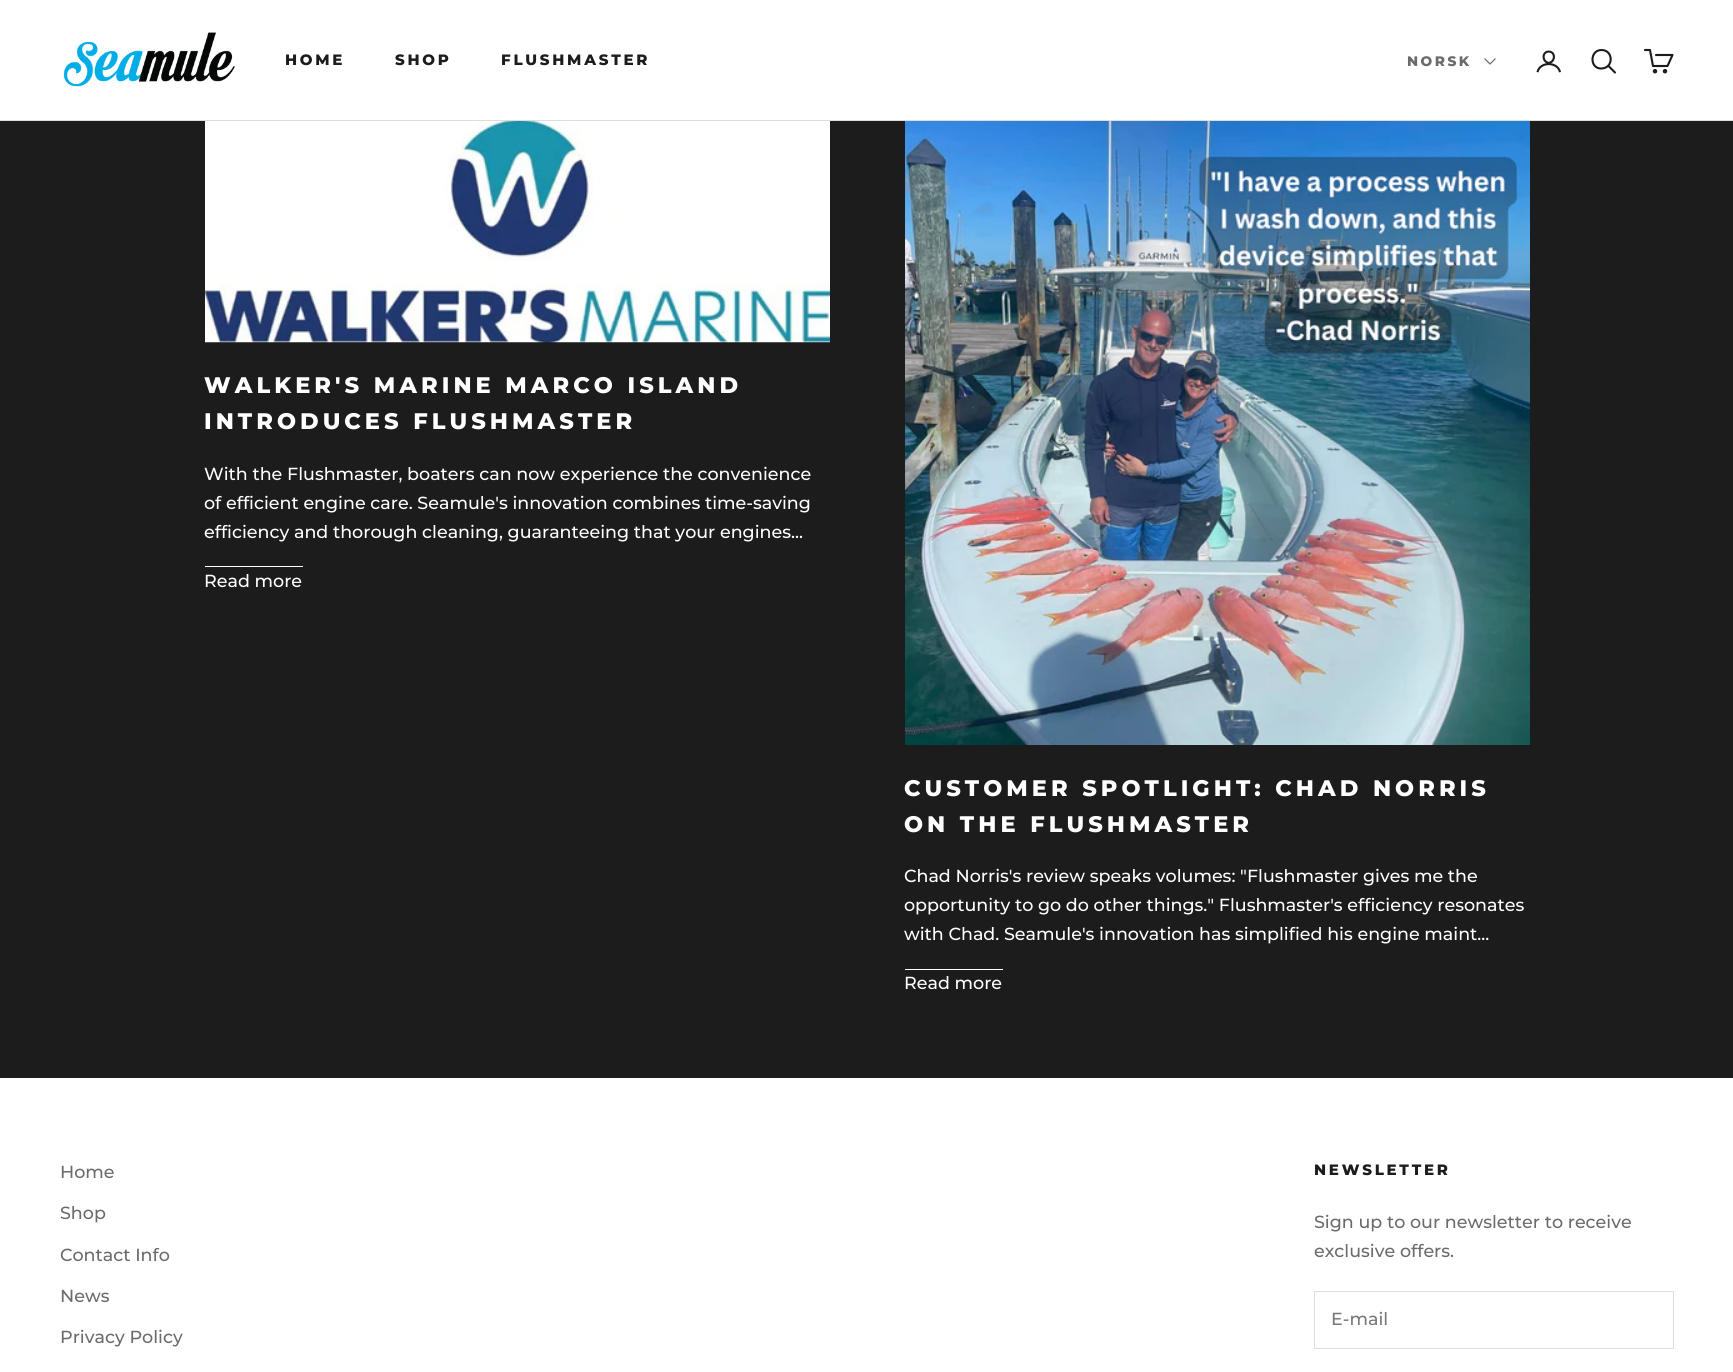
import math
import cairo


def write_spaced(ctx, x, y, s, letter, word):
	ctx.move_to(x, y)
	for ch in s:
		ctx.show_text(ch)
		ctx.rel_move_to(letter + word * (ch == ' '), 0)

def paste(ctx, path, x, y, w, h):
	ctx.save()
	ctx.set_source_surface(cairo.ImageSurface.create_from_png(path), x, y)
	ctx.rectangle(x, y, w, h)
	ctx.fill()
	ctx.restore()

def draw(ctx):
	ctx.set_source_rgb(0.11, 0.11, 0.11)
	ctx.paint()
	ctx.set_source_rgb(1, 1, 1)
	ctx.rectangle(0, 0, 1733, 120)
	ctx.fill()
	ctx.set_source_rgb(0.867, 0.867, 0.867)
	ctx.rectangle(0, 120, 1733, 1)
	ctx.fill()
	paste(ctx, 'media/1.png', 63, 32, 172, 55)
	ctx.select_font_face('Montserrat ExtraBold')
	ctx.set_font_size(15)
	ctx.set_source_rgb(0.11, 0.11, 0.11)
	for x, y, s in [
		(285, 65, 'HOME'),
		(395, 65, 'SHOP'),
		(501, 65, 'FLUSHMASTER'),
	]:
		write_spaced(ctx, x, y, s, 2.75, 0)
	ctx.set_font_size(13.75)
	ctx.set_source_rgb(0.42, 0.42, 0.42)
	write_spaced(ctx, 1407, 66, 'NORSK', 2.5, 0)
	ctx.new_path()
	ctx.move_to(1485, 59)
	ctx.line_to(1490, 64)
	ctx.line_to(1495, 59)
	ctx.set_line_width(1.2)
	ctx.set_line_cap(cairo.LINE_CAP_SQUARE)
	ctx.stroke()
	paste(ctx, 'media/2.png', 1536, 50, 25, 23)
	ctx.new_path()
	ctx.move_to(1601.5, 50)
	ctx.curve_to(1589.5, 50, 1589.5, 69, 1601.5, 68.5)
	ctx.curve_to(1614, 68, 1613.5, 50, 1601.5, 50)
	ctx.close_path()
	ctx.set_source_rgb(0.11, 0.11, 0.11)
	ctx.set_line_width(2.1)
	ctx.set_line_cap(cairo.LINE_CAP_BUTT)
	ctx.stroke()
	ctx.new_path()
	ctx.move_to(1608.5, 66)
	ctx.line_to(1615, 72.5)
	ctx.set_line_cap(cairo.LINE_CAP_ROUND)
	ctx.stroke()
	ctx.new_path()
	ctx.move_to(1656, 55)
	ctx.line_to(1672.5, 55)
	ctx.line_to(1667.5, 66)
	ctx.line_to(1653, 66)
	ctx.line_to(1650, 50)
	ctx.line_to(1645, 50)
	ctx.set_line_join(cairo.LINE_JOIN_ROUND)
	ctx.stroke()
	ctx.arc(1655, 71.2, 1.2, 0, 2 * math.pi)
	ctx.set_line_cap(cairo.LINE_CAP_BUTT)
	ctx.set_line_join(cairo.LINE_JOIN_MITER)
	ctx.stroke()
	ctx.arc(1665, 71.2, 1.2, 0, 2 * math.pi)
	ctx.stroke()
	paste(ctx, 'media/3.png', 205, 121, 625, 222)
	ctx.set_font_size(22.5)
	ctx.set_source_rgb(1, 1, 1)
	write_spaced(ctx, 204, 393, 'WALKER\'S MARINE MARCO ISLAND', 4.05, 0)
	write_spaced(ctx, 204, 429, 'INTRODUCES FLUSHMASTER', 4.05, 0)
	ctx.select_font_face('Montserrat Medium')
	ctx.set_font_size(17.5)
	for x, y, s in [
		(204, 480, 'With the Flushmaster, boaters can now experience the convenience'),
		(204, 509, 'of efficient engine care. Seamule\'s innovation combines time-saving'),
		(204, 538, 'efficiency and thorough cleaning, guaranteeing that your engines...'),
	]:
		ctx.move_to(x, y)
		ctx.show_text(s)
	ctx.rectangle(205, 566, 98, 1)
	ctx.fill()
	ctx.move_to(204, 587)
	ctx.show_text('Read more')
	paste(ctx, 'media/4.png', 905, 121, 625, 624)
	ctx.select_font_face('Montserrat ExtraBold')
	ctx.set_font_size(22.5)
	write_spaced(ctx, 904, 796, 'CUSTOMER SPOTLIGHT: CHAD NORRIS', 4.05, 0)
	write_spaced(ctx, 904, 832, 'ON THE FLUSHMASTER', 4.05, 0)
	ctx.select_font_face('Montserrat Medium')
	ctx.set_font_size(17.5)
	for x, y, s in [
		(904, 882, 'Chad Norris\'s review speaks volumes: "Flushmaster gives me the'),
		(904, 911, 'opportunity to go do other things." Flushmaster\'s efficiency resonates'),
		(904, 940, 'with Chad. Seamule\'s innovation has simplified his engine maint...'),
	]:
		ctx.move_to(x, y)
		ctx.show_text(s)
	ctx.rectangle(905, 969, 98, 1)
	ctx.fill()
	ctx.move_to(904, 989)
	ctx.show_text('Read more')
	ctx.rectangle(0, 1078, 1733, 294)
	ctx.fill()
	ctx.set_source_rgb(0.42, 0.42, 0.42)
	for x, y, s in [
		(60, 1178, 'Home'),
		(60, 1219, 'Shop'),
		(60, 1261, 'Contact Info'),
		(60, 1302, 'News'),
		(60, 1343, 'Privacy Policy'),
	]:
		ctx.move_to(x, y)
		ctx.show_text(s)
	ctx.select_font_face('Montserrat ExtraBold')
	ctx.set_font_size(15)
	ctx.set_source_rgb(0.11, 0.11, 0.11)
	write_spaced(ctx, 1314, 1175, 'NEWSLETTER', 2.75, 0)
	ctx.select_font_face('Montserrat Medium')
	ctx.set_font_size(17.5)
	ctx.set_source_rgb(0.42, 0.42, 0.42)
	ctx.move_to(1314, 1228)
	ctx.show_text('Sign up to our newsletter to receive')
	ctx.move_to(1314, 1257)
	ctx.show_text('exclusive offers.')
	ctx.rectangle(1314.5, 1291.5, 359, 57)
	ctx.set_source_rgb(0.867, 0.867, 0.867)
	ctx.set_line_width(1)
	ctx.stroke()
	ctx.set_source_rgb(0.467, 0.467, 0.467)
	ctx.move_to(1331, 1325)
	ctx.show_text('E-mail')


surface = cairo.ImageSurface(cairo.FORMAT_RGB24, 1733, 1372)
ctx = cairo.Context(surface)
options = cairo.FontOptions()
options.set_hint_metrics(cairo.HINT_METRICS_OFF)
options.set_hint_style(cairo.HINT_STYLE_NONE)
ctx.set_font_options(options)
ctx.set_miter_limit(4)
draw(ctx)
surface.write_to_png('image.png')
